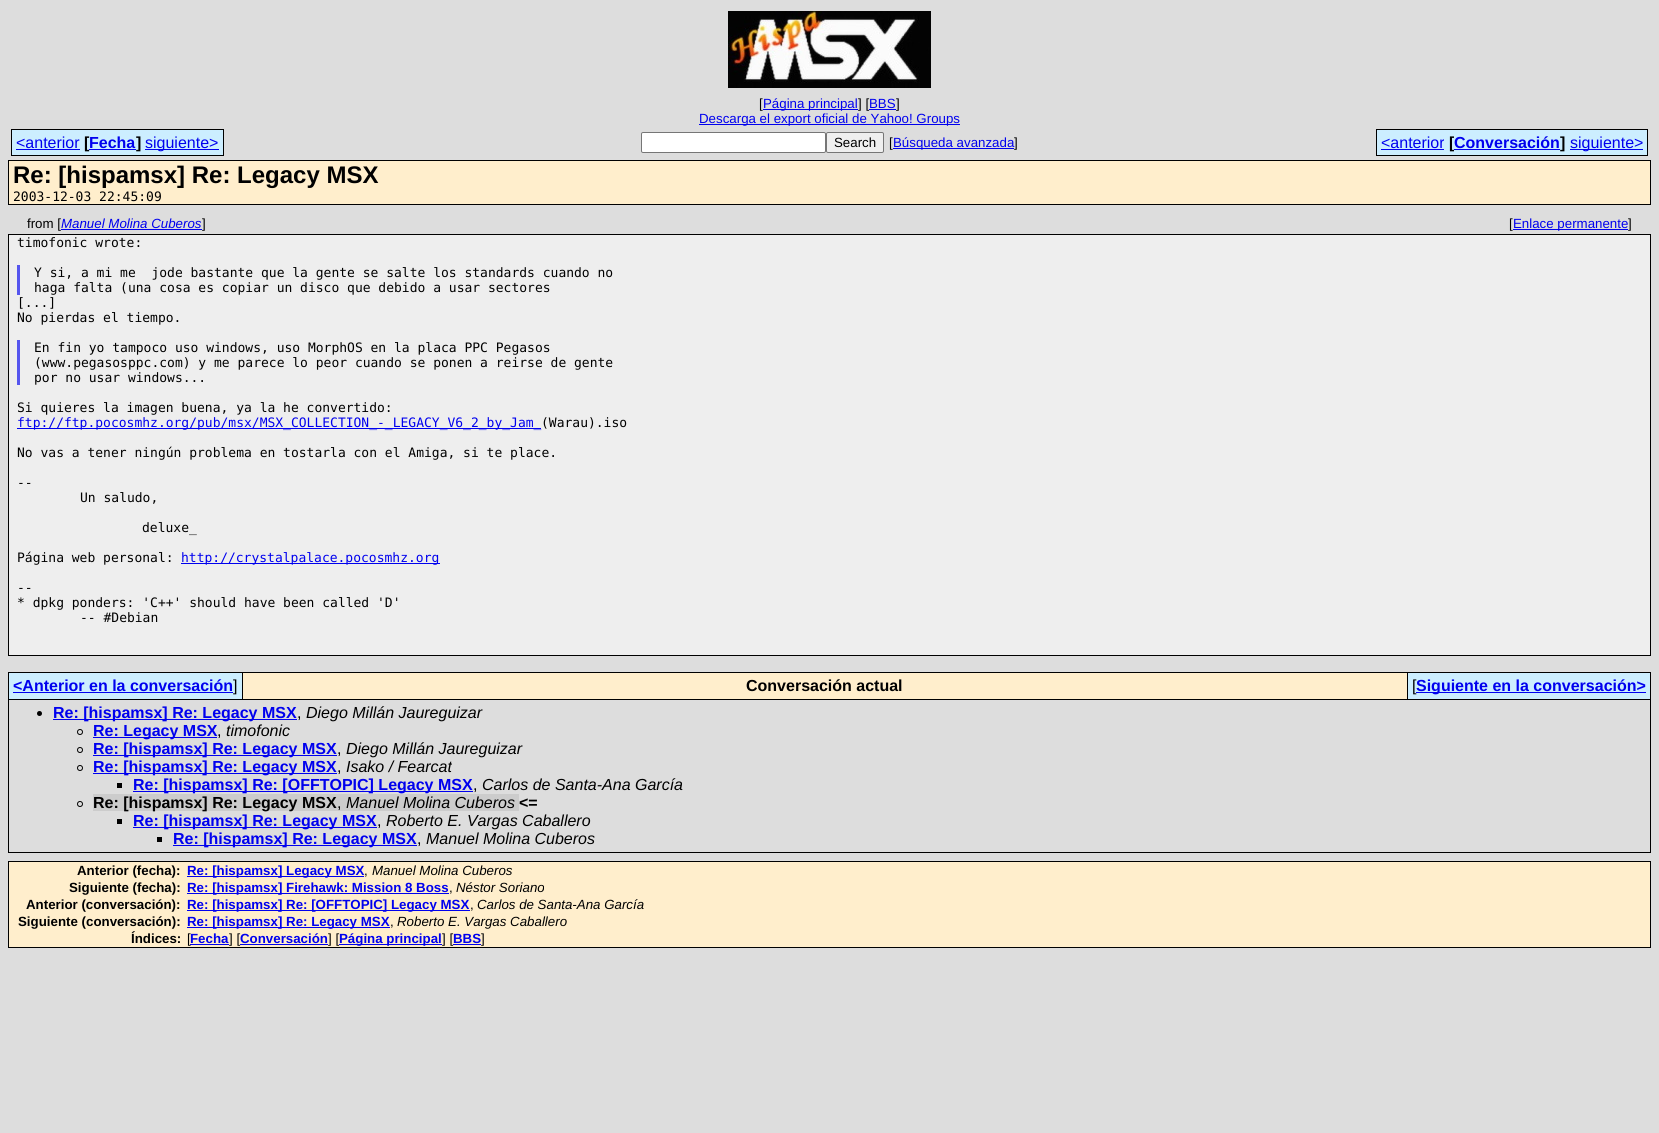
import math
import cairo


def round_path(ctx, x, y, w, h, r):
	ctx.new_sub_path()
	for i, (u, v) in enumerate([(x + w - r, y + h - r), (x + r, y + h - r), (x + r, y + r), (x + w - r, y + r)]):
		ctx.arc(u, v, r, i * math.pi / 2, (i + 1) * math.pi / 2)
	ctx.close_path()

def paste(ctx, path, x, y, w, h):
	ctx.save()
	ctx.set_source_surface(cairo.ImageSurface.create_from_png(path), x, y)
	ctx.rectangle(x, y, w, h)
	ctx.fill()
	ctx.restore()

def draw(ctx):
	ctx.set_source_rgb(0.867, 0.867, 0.867)
	ctx.paint()
	paste(ctx, 'media/1.png', 728, 11, 203, 77)
	ctx.select_font_face('Liberation Sans')
	ctx.set_font_size(13.3)
	ctx.set_source_rgb(0, 0, 0)
	ctx.move_to(759, 108)
	ctx.show_text('[')
	ctx.set_source_rgb(0, 0, 0.933)
	ctx.rectangle(763, 109, 95, 1)
	ctx.fill()
	ctx.move_to(763, 108)
	ctx.show_text('Página principal')
	ctx.set_source_rgb(0, 0, 0)
	ctx.move_to(858, 108)
	ctx.show_text('] [')
	ctx.set_source_rgb(0, 0, 0.933)
	ctx.move_to(869, 108)
	ctx.show_text('BBS')
	ctx.rectangle(869, 109, 27, 1)
	ctx.fill()
	ctx.set_source_rgb(0, 0, 0)
	ctx.move_to(896, 108)
	ctx.show_text(']')
	ctx.set_source_rgb(0, 0, 0.933)
	ctx.rectangle(699, 124, 261, 1)
	ctx.fill()
	ctx.move_to(699, 123)
	ctx.show_text('Descarga el export oficial de Yahoo! Groups')
	ctx.set_source_rgb(0.8, 0.933, 1)
	ctx.rectangle(12, 130, 68, 25)
	ctx.fill()
	ctx.set_font_size(16)
	ctx.set_source_rgb(0, 0, 0.933)
	ctx.move_to(16, 148)
	ctx.show_text('<anterior')
	ctx.set_source_rgb(0, 0, 0)
	ctx.rectangle(11, 129, 69, 1)
	ctx.rectangle(11, 155, 69, 1)
	ctx.rectangle(11, 129, 1, 27)
	ctx.fill()
	ctx.set_source_rgb(0.8, 0.933, 1)
	ctx.rectangle(80, 129, 9, 27)
	ctx.fill()
	ctx.set_source_rgb(0, 0, 0)
	ctx.rectangle(80, 129, 56, 1)
	ctx.fill()
	ctx.set_source_rgb(0, 0, 0.933)
	ctx.rectangle(16, 149, 64, 1)
	ctx.fill()
	ctx.set_source_rgb(0.8, 0.933, 1)
	ctx.rectangle(89, 130, 47, 25)
	ctx.fill()
	ctx.select_font_face('Liberation Sans', cairo.FONT_SLANT_NORMAL, cairo.FONT_WEIGHT_BOLD)
	ctx.set_source_rgb(0, 0, 0)
	ctx.move_to(84, 148)
	ctx.show_text('[')
	ctx.rectangle(80, 155, 56, 1)
	ctx.fill()
	ctx.set_source_rgb(0, 0, 0.933)
	ctx.rectangle(89, 149, 47, 1)
	ctx.fill()
	ctx.move_to(89, 148)
	ctx.show_text('Fecha')
	ctx.set_source_rgb(0.8, 0.933, 1)
	ctx.rectangle(136, 129, 9, 27)
	ctx.fill()
	ctx.set_source_rgb(0, 0, 0)
	ctx.rectangle(136, 129, 88, 1)
	ctx.fill()
	ctx.move_to(136, 148)
	ctx.show_text(']')
	ctx.rectangle(136, 155, 9, 1)
	ctx.fill()
	ctx.set_source_rgb(0.8, 0.933, 1)
	ctx.rectangle(145, 130, 78, 25)
	ctx.fill()
	ctx.set_source_rgb(0, 0, 0.933)
	ctx.rectangle(145, 149, 74, 1)
	ctx.fill()
	ctx.select_font_face('Liberation Sans')
	ctx.move_to(145, 148)
	ctx.show_text('siguiente>')
	ctx.set_source_rgb(0, 0, 0)
	ctx.rectangle(223, 129, 1, 27)
	ctx.fill()
	ctx.rectangle(145, 155, 79, 1)
	ctx.fill()
	ctx.set_source_rgb(1, 1, 1)
	round_path(ctx, 641.5, 132.5, 184, 20, 1.5)
	ctx.fill_preserve()
	ctx.set_source_rgb(0.463, 0.463, 0.463)
	ctx.set_line_width(1)
	ctx.stroke()
	ctx.set_source_rgb(0.937, 0.937, 0.937)
	round_path(ctx, 826.5, 132.5, 57, 20, 1.5)
	ctx.fill_preserve()
	ctx.set_source_rgb(0.463, 0.463, 0.463)
	ctx.stroke()
	ctx.set_font_size(13.3)
	ctx.set_source_rgb(0, 0, 0)
	ctx.move_to(834, 147)
	ctx.show_text('Search')
	ctx.move_to(889, 147)
	ctx.show_text('[')
	ctx.set_source_rgb(0, 0, 0.933)
	ctx.rectangle(893, 148, 121, 1)
	ctx.fill()
	ctx.move_to(893, 147)
	ctx.show_text('Búsqueda avanzada')
	ctx.set_source_rgb(0, 0, 0)
	ctx.move_to(1014, 147)
	ctx.show_text(']')
	ctx.set_source_rgb(0.8, 0.933, 1)
	ctx.rectangle(1377, 130, 67, 25)
	ctx.fill()
	ctx.set_font_size(16)
	ctx.set_source_rgb(0, 0, 0.933)
	ctx.move_to(1381, 148)
	ctx.show_text('<anterior')
	ctx.set_source_rgb(0, 0, 0)
	ctx.rectangle(1376, 129, 68, 1)
	ctx.rectangle(1376, 155, 68, 1)
	ctx.rectangle(1376, 129, 1, 27)
	ctx.fill()
	ctx.set_source_rgb(0.8, 0.933, 1)
	ctx.rectangle(1444, 129, 10, 27)
	ctx.fill()
	ctx.set_source_rgb(0, 0, 0)
	ctx.rectangle(1444, 129, 116, 1)
	ctx.fill()
	ctx.set_source_rgb(0, 0, 0.933)
	ctx.rectangle(1381, 149, 63, 1)
	ctx.fill()
	ctx.select_font_face('Liberation Sans', cairo.FONT_SLANT_NORMAL, cairo.FONT_WEIGHT_BOLD)
	ctx.set_source_rgb(0, 0, 0)
	ctx.move_to(1449, 148)
	ctx.show_text('[')
	ctx.rectangle(1444, 155, 116, 1)
	ctx.fill()
	ctx.set_source_rgb(0.8, 0.933, 1)
	ctx.rectangle(1454, 130, 106, 25)
	ctx.fill()
	ctx.set_source_rgb(0, 0, 0.933)
	ctx.rectangle(1454, 149, 106, 1)
	ctx.fill()
	ctx.move_to(1454, 148)
	ctx.show_text('Conversación')
	ctx.set_source_rgb(0.8, 0.933, 1)
	ctx.rectangle(1560, 129, 10, 27)
	ctx.fill()
	ctx.set_source_rgb(0, 0, 0)
	ctx.rectangle(1560, 129, 88, 1)
	ctx.fill()
	ctx.move_to(1560, 148)
	ctx.show_text(']')
	ctx.rectangle(1560, 155, 10, 1)
	ctx.fill()
	ctx.set_source_rgb(0.8, 0.933, 1)
	ctx.rectangle(1570, 130, 77, 25)
	ctx.fill()
	ctx.set_source_rgb(0, 0, 0.933)
	ctx.rectangle(1570, 149, 73, 1)
	ctx.fill()
	ctx.select_font_face('Liberation Sans')
	ctx.move_to(1570, 148)
	ctx.show_text('siguiente>')
	ctx.set_source_rgb(0, 0, 0)
	ctx.rectangle(1647, 129, 1, 27)
	ctx.fill()
	ctx.rectangle(1570, 155, 78, 1)
	ctx.fill()
	ctx.set_source_rgb(1, 0.933, 0.8)
	ctx.rectangle(8.5, 160.5, 1642, 44)
	ctx.fill_preserve()
	ctx.set_source_rgb(0, 0, 0)
	ctx.stroke()
	ctx.select_font_face('Liberation Sans', cairo.FONT_SLANT_NORMAL, cairo.FONT_WEIGHT_BOLD)
	ctx.set_font_size(24)
	ctx.move_to(13, 183)
	ctx.show_text('Re: [hispamsx] Re: Legacy MSX')
	ctx.select_font_face('DejaVu Sans Mono')
	ctx.set_font_size(13)
	ctx.move_to(13, 201)
	ctx.show_text('2003-12-03 22:45:09')
	ctx.select_font_face('Liberation Sans')
	ctx.set_font_size(13.3)
	ctx.move_to(27, 228)
	ctx.show_text('from [')
	ctx.set_source_rgb(0, 0, 0.933)
	ctx.rectangle(61, 229, 141, 1)
	ctx.fill()
	ctx.select_font_face('Liberation Sans', cairo.FONT_SLANT_ITALIC)
	ctx.move_to(61, 228)
	ctx.show_text('Manuel Molina Cuberos')
	ctx.select_font_face('Liberation Sans')
	ctx.set_source_rgb(0, 0, 0)
	ctx.move_to(202, 228)
	ctx.show_text(']')
	ctx.move_to(1509, 228)
	ctx.show_text('[')
	ctx.set_source_rgb(0, 0, 0.933)
	ctx.rectangle(1513, 229, 115, 1)
	ctx.fill()
	ctx.move_to(1513, 228)
	ctx.show_text('Enlace permanente')
	ctx.set_source_rgb(0, 0, 0)
	ctx.move_to(1628, 228)
	ctx.show_text(']')
	ctx.set_source_rgb(0.933, 0.933, 0.933)
	ctx.rectangle(8.5, 234.5, 1642, 421)
	ctx.fill_preserve()
	ctx.set_source_rgb(0, 0, 0)
	ctx.stroke()
	ctx.select_font_face('DejaVu Sans Mono')
	ctx.set_font_size(13)
	ctx.move_to(17, 247)
	ctx.show_text('timofonic wrote:')
	ctx.set_source_rgb(0.333, 0.333, 0.933)
	ctx.rectangle(17, 265, 3, 30)
	ctx.fill()
	ctx.set_source_rgb(0, 0, 0)
	for x, y, s in [
		(34, 277, 'Y si, a mi me  jode bastante que la gente se salte los standards cuando no'),
		(34, 292, 'haga falta (una cosa es copiar un disco que debido a usar sectores'),
		(17, 307, '[...]'),
		(17, 322, 'No pierdas el tiempo.'),
	]:
		ctx.move_to(x, y)
		ctx.show_text(s)
	ctx.set_source_rgb(0.333, 0.333, 0.933)
	ctx.rectangle(17, 340, 3, 45)
	ctx.fill()
	ctx.set_source_rgb(0, 0, 0)
	for x, y, s in [
		(34, 352, 'En fin yo tampoco uso windows, uso MorphOS en la placa PPC Pegasos'),
		(34, 367, '(www.pegasosppc.com) y me parece lo peor cuando se ponen a reirse de gente'),
		(34, 382, 'por no usar windows...'),
		(17, 412, 'Si quieres la imagen buena, ya la he convertido:'),
	]:
		ctx.move_to(x, y)
		ctx.show_text(s)
	ctx.set_source_rgb(0, 0, 0.933)
	ctx.rectangle(17, 428, 524, 1)
	ctx.fill()
	ctx.move_to(17, 427)
	ctx.show_text('ftp://ftp.pocosmhz.org/pub/msx/MSX_COLLECTION_-_LEGACY_V6_2_by_Jam_')
	ctx.set_source_rgb(0, 0, 0)
	for x, y, s in [
		(541, 427, '(Warau).iso'),
		(17, 457, 'No vas a tener ningún problema en tostarla con el Amiga, si te place.'),
		(17, 487, '--'),
		(80, 502, 'Un saludo,'),
		(142, 532, 'deluxe_'),
		(17, 562, 'Página web personal:'),
	]:
		ctx.move_to(x, y)
		ctx.show_text(s)
	ctx.set_source_rgb(0, 0, 0.933)
	ctx.rectangle(181, 563, 259, 1)
	ctx.fill()
	ctx.move_to(181, 562)
	ctx.show_text('http://crystalpalace.pocosmhz.org')
	ctx.set_source_rgb(0, 0, 0)
	for x, y, s in [
		(17, 592, '--'),
		(17, 607, '* dpkg ponders: \'C++\' should have been called \'D\''),
		(80, 622, '-- #Debian'),
	]:
		ctx.move_to(x, y)
		ctx.show_text(s)
	ctx.rectangle(8, 672, 1643, 181)
	ctx.fill()
	ctx.set_source_rgb(0.8, 0.933, 1)
	ctx.rectangle(9, 673, 233, 26)
	ctx.fill()
	ctx.select_font_face('Liberation Sans', cairo.FONT_SLANT_NORMAL, cairo.FONT_WEIGHT_BOLD)
	ctx.set_font_size(16)
	ctx.set_source_rgb(0, 0, 0.933)
	ctx.move_to(13, 691)
	ctx.show_text('<Anterior en la conversación')
	ctx.rectangle(13, 692, 220, 1)
	ctx.fill()
	ctx.select_font_face('Liberation Sans')
	ctx.set_source_rgb(0, 0, 0)
	ctx.move_to(233, 691)
	ctx.show_text(']')
	ctx.set_source_rgb(1, 0.933, 0.8)
	ctx.rectangle(243, 673, 1164, 26)
	ctx.fill()
	ctx.select_font_face('Liberation Sans', cairo.FONT_SLANT_NORMAL, cairo.FONT_WEIGHT_BOLD)
	ctx.set_source_rgb(0, 0, 0)
	ctx.move_to(746, 691)
	ctx.show_text('Conversación actual')
	ctx.set_source_rgb(0.8, 0.933, 1)
	ctx.rectangle(1408, 673, 242, 26)
	ctx.fill()
	ctx.select_font_face('Liberation Sans')
	ctx.set_source_rgb(0, 0, 0)
	ctx.move_to(1412, 691)
	ctx.show_text('[')
	ctx.set_source_rgb(0, 0, 0.933)
	ctx.rectangle(1416, 692, 230, 1)
	ctx.fill()
	ctx.select_font_face('Liberation Sans', cairo.FONT_SLANT_NORMAL, cairo.FONT_WEIGHT_BOLD)
	ctx.move_to(1416, 691)
	ctx.show_text('Siguiente en la conversación>')
	ctx.set_source_rgb(0.867, 0.867, 0.867)
	ctx.rectangle(9, 700, 1641, 152)
	ctx.fill()
	ctx.set_source_rgb(0, 0, 0)
	ctx.arc(39.5, 713.5, 2.5, 0, 2 * math.pi)
	ctx.fill()
	ctx.set_source_rgb(0, 0, 0.933)
	ctx.rectangle(53, 719, 244, 1)
	ctx.fill()
	ctx.move_to(53, 718)
	ctx.show_text('Re: [hispamsx] Re: Legacy MSX')
	ctx.select_font_face('Liberation Sans', cairo.FONT_SLANT_ITALIC)
	ctx.set_source_rgb(0, 0, 0)
	ctx.move_to(306, 718)
	ctx.show_text('Diego Millán Jaureguizar')
	ctx.select_font_face('Liberation Sans')
	ctx.move_to(297, 718)
	ctx.show_text(',')
	ctx.new_path()
	ctx.arc(80, 732, 2.5, 0, 2 * math.pi)
	ctx.stroke()
	ctx.set_source_rgb(0, 0, 0.933)
	ctx.rectangle(93, 737, 124, 1)
	ctx.fill()
	ctx.select_font_face('Liberation Sans', cairo.FONT_SLANT_NORMAL, cairo.FONT_WEIGHT_BOLD)
	ctx.move_to(93, 736)
	ctx.show_text('Re: Legacy MSX')
	ctx.select_font_face('Liberation Sans', cairo.FONT_SLANT_ITALIC)
	ctx.set_source_rgb(0, 0, 0)
	ctx.move_to(226, 736)
	ctx.show_text('timofonic')
	ctx.select_font_face('Liberation Sans')
	ctx.move_to(217, 736)
	ctx.show_text(',')
	ctx.new_path()
	ctx.arc(80, 750, 2.5, 0, 2 * math.pi)
	ctx.stroke()
	ctx.set_source_rgb(0, 0, 0.933)
	ctx.rectangle(93, 755, 244, 1)
	ctx.fill()
	ctx.select_font_face('Liberation Sans', cairo.FONT_SLANT_NORMAL, cairo.FONT_WEIGHT_BOLD)
	ctx.move_to(93, 754)
	ctx.show_text('Re: [hispamsx] Re: Legacy MSX')
	ctx.select_font_face('Liberation Sans', cairo.FONT_SLANT_ITALIC)
	ctx.set_source_rgb(0, 0, 0)
	ctx.move_to(346, 754)
	ctx.show_text('Diego Millán Jaureguizar')
	ctx.select_font_face('Liberation Sans')
	ctx.move_to(337, 754)
	ctx.show_text(',')
	ctx.new_path()
	ctx.arc(80, 768, 2.5, 0, 2 * math.pi)
	ctx.stroke()
	ctx.set_source_rgb(0, 0, 0.933)
	ctx.rectangle(93, 773, 244, 1)
	ctx.fill()
	ctx.select_font_face('Liberation Sans', cairo.FONT_SLANT_NORMAL, cairo.FONT_WEIGHT_BOLD)
	ctx.move_to(93, 772)
	ctx.show_text('Re: [hispamsx] Re: Legacy MSX')
	ctx.select_font_face('Liberation Sans', cairo.FONT_SLANT_ITALIC)
	ctx.set_source_rgb(0, 0, 0)
	ctx.move_to(346, 772)
	ctx.show_text('Isako / Fearcat')
	ctx.select_font_face('Liberation Sans')
	ctx.move_to(337, 772)
	ctx.show_text(',')
	ctx.rectangle(117, 783, 5, 5)
	ctx.fill()
	ctx.set_source_rgb(0, 0, 0.933)
	ctx.rectangle(133, 791, 340, 1)
	ctx.fill()
	ctx.select_font_face('Liberation Sans', cairo.FONT_SLANT_NORMAL, cairo.FONT_WEIGHT_BOLD)
	ctx.move_to(133, 790)
	ctx.show_text('Re: [hispamsx] Re: [OFFTOPIC] Legacy MSX')
	ctx.select_font_face('Liberation Sans', cairo.FONT_SLANT_ITALIC)
	ctx.set_source_rgb(0, 0, 0)
	ctx.move_to(482, 790)
	ctx.show_text('Carlos de Santa-Ana García')
	ctx.select_font_face('Liberation Sans')
	ctx.move_to(473, 790)
	ctx.show_text(',')
	ctx.new_path()
	ctx.arc(80, 804, 2.5, 0, 2 * math.pi)
	ctx.stroke()
	ctx.set_source_rgb(0.8, 0.8, 0.8)
	ctx.rectangle(93, 794, 426, 17)
	ctx.fill()
	ctx.select_font_face('Liberation Sans', cairo.FONT_SLANT_NORMAL, cairo.FONT_WEIGHT_BOLD)
	ctx.set_source_rgb(0, 0, 0)
	ctx.move_to(93, 808)
	ctx.show_text('Re: [hispamsx] Re: Legacy MSX')
	ctx.select_font_face('Liberation Sans', cairo.FONT_SLANT_ITALIC)
	ctx.move_to(346, 808)
	ctx.show_text('Manuel Molina Cuberos')
	ctx.select_font_face('Liberation Sans', cairo.FONT_SLANT_NORMAL, cairo.FONT_WEIGHT_BOLD)
	ctx.move_to(519, 808)
	ctx.show_text('<=')
	ctx.select_font_face('Liberation Sans')
	ctx.move_to(337, 808)
	ctx.show_text(',')
	ctx.rectangle(117, 819, 5, 5)
	ctx.fill()
	ctx.set_source_rgb(0, 0, 0.933)
	ctx.rectangle(133, 827, 244, 1)
	ctx.fill()
	ctx.select_font_face('Liberation Sans', cairo.FONT_SLANT_NORMAL, cairo.FONT_WEIGHT_BOLD)
	ctx.move_to(133, 826)
	ctx.show_text('Re: [hispamsx] Re: Legacy MSX')
	ctx.select_font_face('Liberation Sans', cairo.FONT_SLANT_ITALIC)
	ctx.set_source_rgb(0, 0, 0)
	ctx.move_to(386, 826)
	ctx.show_text('Roberto E. Vargas Caballero')
	ctx.select_font_face('Liberation Sans')
	ctx.move_to(377, 826)
	ctx.show_text(',')
	ctx.rectangle(157, 837, 5, 5)
	ctx.fill()
	ctx.set_source_rgb(0, 0, 0.933)
	ctx.rectangle(173, 845, 244, 1)
	ctx.fill()
	ctx.select_font_face('Liberation Sans', cairo.FONT_SLANT_NORMAL, cairo.FONT_WEIGHT_BOLD)
	ctx.move_to(173, 844)
	ctx.show_text('Re: [hispamsx] Re: Legacy MSX')
	ctx.select_font_face('Liberation Sans', cairo.FONT_SLANT_ITALIC)
	ctx.set_source_rgb(0, 0, 0)
	ctx.move_to(426, 844)
	ctx.show_text('Manuel Molina Cuberos')
	ctx.select_font_face('Liberation Sans')
	ctx.move_to(417, 844)
	ctx.show_text(',')
	ctx.set_source_rgb(1, 0.933, 0.8)
	ctx.rectangle(8.5, 861.5, 1642, 86)
	ctx.fill_preserve()
	ctx.set_source_rgb(0, 0, 0)
	ctx.stroke()
	ctx.select_font_face('Liberation Sans', cairo.FONT_SLANT_NORMAL, cairo.FONT_WEIGHT_BOLD)
	ctx.set_font_size(13.3)
	ctx.move_to(77, 875)
	ctx.show_text('Anterior (fecha):')
	ctx.set_source_rgb(0, 0, 0.933)
	ctx.rectangle(187, 876, 177, 1)
	ctx.fill()
	ctx.move_to(187, 875)
	ctx.show_text('Re: [hispamsx] Legacy MSX')
	ctx.select_font_face('Liberation Sans')
	ctx.set_source_rgb(0, 0, 0)
	ctx.move_to(364, 875)
	ctx.show_text(',')
	ctx.select_font_face('Liberation Sans', cairo.FONT_SLANT_ITALIC)
	ctx.move_to(372, 875)
	ctx.show_text('Manuel Molina Cuberos')
	ctx.select_font_face('Liberation Sans', cairo.FONT_SLANT_NORMAL, cairo.FONT_WEIGHT_BOLD)
	ctx.move_to(69, 892)
	ctx.show_text('Siguiente (fecha):')
	ctx.set_source_rgb(0, 0, 0.933)
	ctx.rectangle(187, 893, 262, 1)
	ctx.fill()
	ctx.move_to(187, 892)
	ctx.show_text('Re: [hispamsx] Firehawk: Mission 8 Boss')
	ctx.select_font_face('Liberation Sans')
	ctx.set_source_rgb(0, 0, 0)
	ctx.move_to(449, 892)
	ctx.show_text(',')
	ctx.select_font_face('Liberation Sans', cairo.FONT_SLANT_ITALIC)
	ctx.move_to(456, 892)
	ctx.show_text('Néstor Soriano')
	ctx.select_font_face('Liberation Sans', cairo.FONT_SLANT_NORMAL, cairo.FONT_WEIGHT_BOLD)
	ctx.move_to(26, 909)
	ctx.show_text('Anterior (conversación):')
	ctx.set_source_rgb(0, 0, 0.933)
	ctx.rectangle(187, 910, 283, 1)
	ctx.fill()
	ctx.move_to(187, 909)
	ctx.show_text('Re: [hispamsx] Re: [OFFTOPIC] Legacy MSX')
	ctx.select_font_face('Liberation Sans')
	ctx.set_source_rgb(0, 0, 0)
	ctx.move_to(470, 909)
	ctx.show_text(',')
	ctx.select_font_face('Liberation Sans', cairo.FONT_SLANT_ITALIC)
	ctx.move_to(477, 909)
	ctx.show_text('Carlos de Santa-Ana García')
	ctx.select_font_face('Liberation Sans', cairo.FONT_SLANT_NORMAL, cairo.FONT_WEIGHT_BOLD)
	ctx.move_to(18, 926)
	ctx.show_text('Siguiente (conversación):')
	ctx.set_source_rgb(0, 0, 0.933)
	ctx.rectangle(187, 927, 203, 1)
	ctx.fill()
	ctx.move_to(187, 926)
	ctx.show_text('Re: [hispamsx] Re: Legacy MSX')
	ctx.select_font_face('Liberation Sans')
	ctx.set_source_rgb(0, 0, 0)
	ctx.move_to(390, 926)
	ctx.show_text(',')
	ctx.select_font_face('Liberation Sans', cairo.FONT_SLANT_ITALIC)
	ctx.move_to(397, 926)
	ctx.show_text('Roberto E. Vargas Caballero')
	ctx.select_font_face('Liberation Sans', cairo.FONT_SLANT_NORMAL, cairo.FONT_WEIGHT_BOLD)
	ctx.move_to(131, 943)
	ctx.show_text('Índices:')
	ctx.select_font_face('Liberation Sans')
	ctx.move_to(187, 943)
	ctx.show_text('[')
	ctx.select_font_face('Liberation Sans', cairo.FONT_SLANT_NORMAL, cairo.FONT_WEIGHT_BOLD)
	ctx.set_source_rgb(0, 0, 0.933)
	ctx.move_to(190, 943)
	ctx.show_text('Fecha')
	ctx.rectangle(190, 944, 39, 1)
	ctx.fill()
	ctx.select_font_face('Liberation Sans')
	ctx.set_source_rgb(0, 0, 0)
	ctx.move_to(229, 943)
	ctx.show_text('] [')
	ctx.select_font_face('Liberation Sans', cairo.FONT_SLANT_NORMAL, cairo.FONT_WEIGHT_BOLD)
	ctx.set_source_rgb(0, 0, 0.933)
	ctx.move_to(240, 943)
	ctx.show_text('Conversación')
	ctx.rectangle(240, 944, 88, 1)
	ctx.fill()
	ctx.select_font_face('Liberation Sans')
	ctx.set_source_rgb(0, 0, 0)
	ctx.move_to(328, 943)
	ctx.show_text('] [')
	ctx.set_source_rgb(0, 0, 0.933)
	ctx.rectangle(339, 944, 103, 1)
	ctx.fill()
	ctx.select_font_face('Liberation Sans', cairo.FONT_SLANT_NORMAL, cairo.FONT_WEIGHT_BOLD)
	ctx.move_to(339, 943)
	ctx.show_text('Página principal')
	ctx.select_font_face('Liberation Sans')
	ctx.set_source_rgb(0, 0, 0)
	ctx.move_to(442, 943)
	ctx.show_text('] [')
	ctx.select_font_face('Liberation Sans', cairo.FONT_SLANT_NORMAL, cairo.FONT_WEIGHT_BOLD)
	ctx.set_source_rgb(0, 0, 0.933)
	ctx.move_to(453, 943)
	ctx.show_text('BBS')
	ctx.rectangle(453, 944, 28, 1)
	ctx.fill()
	ctx.select_font_face('Liberation Sans')
	ctx.set_source_rgb(0, 0, 0)
	ctx.move_to(481, 943)
	ctx.show_text(']')


surface = cairo.ImageSurface(cairo.FORMAT_RGB24, 1659, 1133)
ctx = cairo.Context(surface)
options = cairo.FontOptions()
options.set_hint_metrics(cairo.HINT_METRICS_OFF)
options.set_hint_style(cairo.HINT_STYLE_NONE)
ctx.set_font_options(options)
ctx.set_miter_limit(4)
draw(ctx)
surface.write_to_png('image.png')
